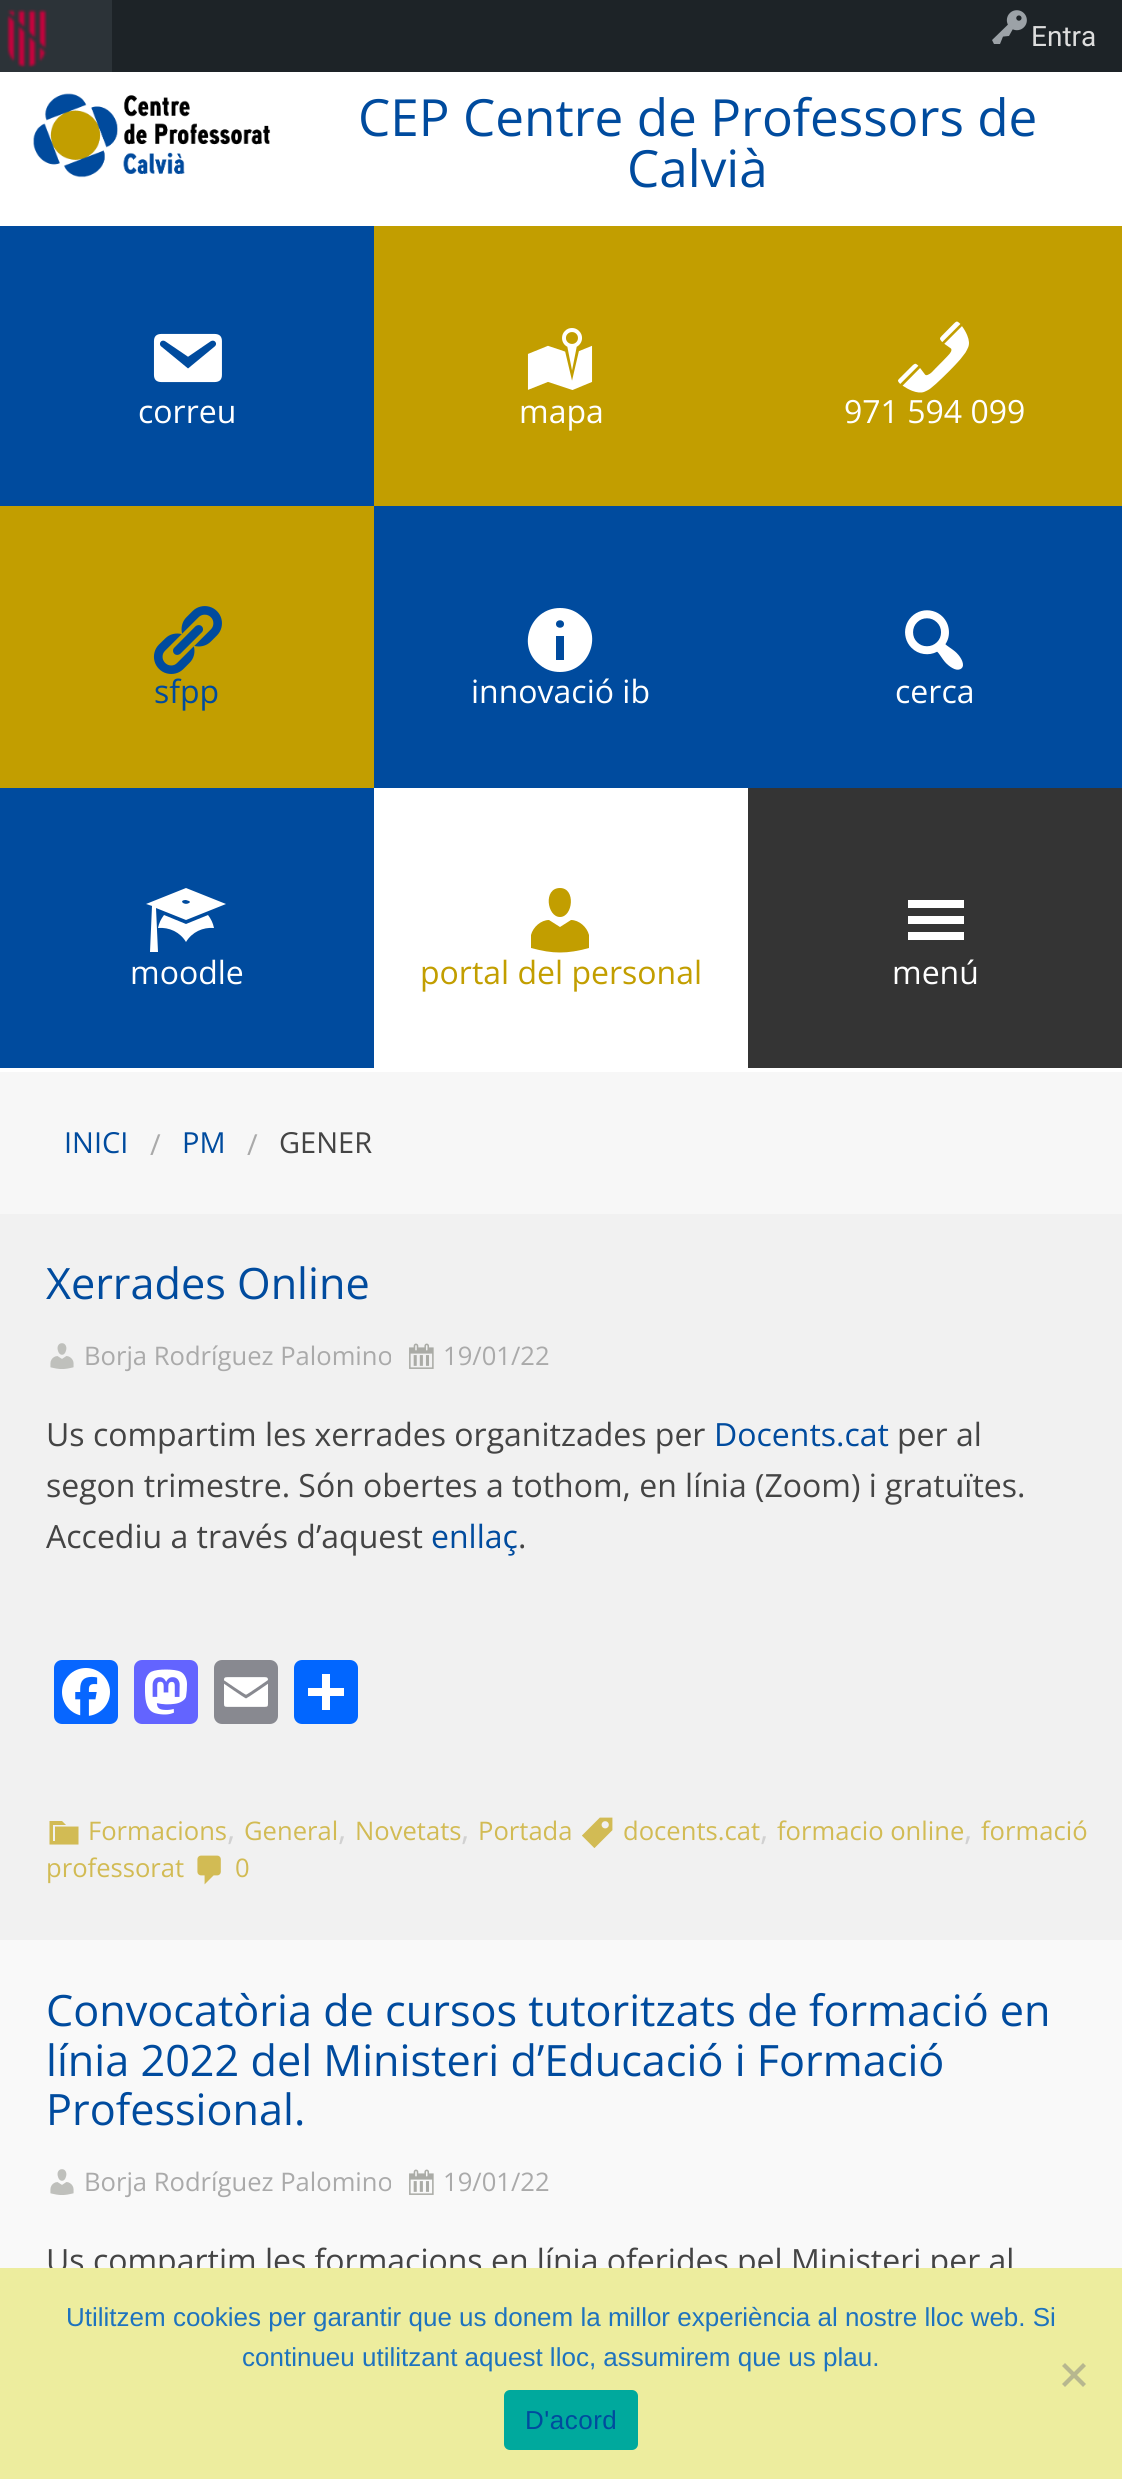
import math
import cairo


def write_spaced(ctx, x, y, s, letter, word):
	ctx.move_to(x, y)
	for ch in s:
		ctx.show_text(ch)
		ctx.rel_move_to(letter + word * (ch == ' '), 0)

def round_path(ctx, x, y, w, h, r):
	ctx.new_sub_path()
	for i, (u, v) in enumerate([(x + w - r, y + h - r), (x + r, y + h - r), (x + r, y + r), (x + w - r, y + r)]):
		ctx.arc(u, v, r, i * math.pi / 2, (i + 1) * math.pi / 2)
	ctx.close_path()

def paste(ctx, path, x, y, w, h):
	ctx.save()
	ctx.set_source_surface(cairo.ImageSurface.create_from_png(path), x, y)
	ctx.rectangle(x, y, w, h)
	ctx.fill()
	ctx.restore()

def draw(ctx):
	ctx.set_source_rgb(1, 1, 1)
	ctx.paint()
	ctx.set_source_rgb(0.114, 0.137, 0.153)
	ctx.rectangle(112, 0, 1010, 72)
	ctx.fill()
	ctx.set_source_rgb(0.173, 0.2, 0.22)
	ctx.rectangle(0, 0, 112, 72)
	ctx.fill()
	paste(ctx, 'media/1.png', 6, 9, 41, 59)
	paste(ctx, 'media/2.png', 992, 10, 35, 34)
	ctx.select_font_face('Roboto')
	ctx.set_font_size(28)
	ctx.set_source_rgb(0.867, 0.867, 0.867)
	ctx.move_to(1031, 46)
	ctx.show_text('Entra')
	paste(ctx, 'media/3.png', 33, 93, 238, 85)
	ctx.select_font_face('Open Sans')
	ctx.set_font_size(51.25)
	ctx.set_source_rgb(0, 0.294, 0.62)
	ctx.move_to(358, 136)
	ctx.show_text('CEP Centre de Professors de')
	ctx.move_to(627, 187)
	ctx.show_text('Calvià')
	ctx.rectangle(0, 226, 374, 280)
	ctx.fill()
	paste(ctx, 'media/4.png', 153, 333, 69, 50)
	ctx.set_font_size(32)
	ctx.set_source_rgb(1, 1, 1)
	ctx.move_to(138, 423)
	ctx.show_text('correu')
	ctx.set_source_rgb(0.761, 0.62, 0)
	ctx.rectangle(374, 226, 748, 280)
	ctx.fill()
	paste(ctx, 'media/5.png', 527, 328, 66, 62)
	ctx.set_source_rgb(1, 1, 1)
	ctx.move_to(519, 423)
	ctx.show_text('mapa')
	paste(ctx, 'media/6.png', 898, 321, 71, 72)
	ctx.move_to(844, 423)
	ctx.show_text('971 594 099')
	ctx.set_source_rgb(0.761, 0.62, 0)
	ctx.rectangle(0, 506, 374, 282)
	ctx.fill()
	paste(ctx, 'media/7.png', 153, 606, 69, 68)
	ctx.set_source_rgb(0, 0.294, 0.62)
	ctx.move_to(154, 703)
	ctx.show_text('sfpp')
	ctx.rectangle(374, 506, 748, 282)
	ctx.fill()
	ctx.set_source_rgb(1, 1, 1)
	ctx.new_path()
	ctx.move_to(560, 608)
	ctx.curve_to(567, 608, 574, 610, 580, 615)
	ctx.curve_to(604, 633, 590, 672, 560, 672)
	ctx.curve_to(553, 672, 546, 670, 540, 665)
	ctx.curve_to(516, 647, 530, 608, 560, 608)
	ctx.close_path()
	ctx.move_to(564, 624)
	ctx.curve_to(564, 619, 556, 619, 556, 624)
	ctx.curve_to(556, 629, 564, 629, 564, 624)
	ctx.close_path()
	ctx.move_to(564, 660)
	ctx.line_to(564, 636)
	ctx.line_to(556, 636)
	ctx.line_to(556, 660)
	ctx.close_path()
	ctx.fill()
	ctx.move_to(471, 703)
	ctx.show_text('innovació ib')
	paste(ctx, 'media/8.png', 905, 610, 58, 60)
	ctx.move_to(895, 703)
	ctx.show_text('cerca')
	ctx.set_source_rgb(0, 0.294, 0.62)
	ctx.rectangle(0, 788, 374, 280)
	ctx.fill()
	ctx.set_source_rgb(1, 1, 1)
	ctx.new_path()
	ctx.move_to(186, 920)
	ctx.line_to(156, 908)
	ctx.line_to(158, 952)
	ctx.line_to(150, 952)
	ctx.line_to(152, 906)
	ctx.line_to(146, 904)
	ctx.line_to(186, 888)
	ctx.line_to(226, 904)
	ctx.close_path()
	ctx.move_to(186, 900)
	ctx.curve_to(178, 900, 184, 906, 189, 903)
	ctx.curve_to(190, 903, 190, 901, 189, 901)
	ctx.close_path()
	ctx.move_to(186, 924)
	ctx.line_to(208, 915)
	ctx.curve_to(211, 919, 213, 923, 214, 928)
	ctx.curve_to(203, 927, 192, 932, 186, 942)
	ctx.curve_to(180, 932, 169, 927, 158, 928)
	ctx.curve_to(159, 923, 161, 919, 164, 915)
	ctx.close_path()
	ctx.fill()
	ctx.move_to(130, 984)
	ctx.show_text('moodle')
	ctx.set_source_rgb(0.761, 0.62, 0)
	ctx.new_path()
	ctx.move_to(560, 917)
	ctx.curve_to(547, 917, 543, 888, 560, 888)
	ctx.curve_to(576, 888, 573, 917, 560, 917)
	ctx.close_path()
	ctx.move_to(560, 927)
	ctx.line_to(571, 920)
	ctx.curve_to(579, 920, 587, 927, 589, 935)
	ctx.line_to(589, 948)
	ctx.curve_to(567, 954, 553, 954, 531, 948)
	ctx.line_to(531, 935)
	ctx.curve_to(533, 927, 541, 920, 549, 920)
	ctx.close_path()
	ctx.fill()
	ctx.move_to(420, 984)
	ctx.show_text('portal del personal')
	ctx.set_source_rgb(0.204, 0.204, 0.204)
	ctx.rectangle(748, 788, 374, 280)
	ctx.fill()
	ctx.set_source_rgb(1, 1, 1)
	ctx.new_path()
	ctx.move_to(908, 940)
	ctx.line_to(964, 940)
	ctx.line_to(964, 932)
	ctx.line_to(908, 932)
	ctx.close_path()
	ctx.move_to(908, 900)
	ctx.line_to(908, 908)
	ctx.line_to(964, 908)
	ctx.line_to(964, 900)
	ctx.close_path()
	ctx.move_to(908, 924)
	ctx.line_to(964, 924)
	ctx.line_to(964, 916)
	ctx.line_to(908, 916)
	ctx.close_path()
	ctx.fill()
	ctx.move_to(892, 984)
	ctx.show_text('menú')
	ctx.set_source_rgb(0.965, 0.965, 0.965)
	ctx.rectangle(0, 1072, 1122, 142)
	ctx.fill()
	ctx.set_font_size(29)
	ctx.set_source_rgb(0, 0.294, 0.62)
	ctx.move_to(64, 1153)
	ctx.show_text('INICI')
	ctx.set_source_rgb(0.667, 0.667, 0.667)
	ctx.move_to(150, 1155)
	ctx.show_text('/')
	ctx.set_source_rgb(0, 0.294, 0.62)
	ctx.move_to(182, 1153)
	ctx.show_text('PM')
	ctx.set_source_rgb(0.667, 0.667, 0.667)
	ctx.move_to(247, 1155)
	ctx.show_text('/')
	ctx.set_source_rgb(0.267, 0.267, 0.267)
	ctx.move_to(279, 1153)
	ctx.show_text('GENER')
	ctx.set_source_rgb(0.945, 0.945, 0.945)
	ctx.rectangle(0, 1214, 1122, 726)
	ctx.fill()
	ctx.set_font_size(43.2)
	ctx.set_source_rgb(0, 0.294, 0.62)
	ctx.move_to(46, 1299)
	ctx.show_text('Xerrades Online')
	paste(ctx, 'media/9.png', 50, 1343, 24, 26)
	ctx.set_font_size(25.6)
	ctx.set_source_rgb(0.667, 0.667, 0.667)
	ctx.move_to(84, 1365)
	ctx.show_text('Borja Rodríguez Palomino')
	paste(ctx, 'media/10.png', 409, 1343, 25, 26)
	ctx.move_to(443, 1365)
	ctx.show_text('19/01/22')
	ctx.set_font_size(32)
	ctx.set_source_rgb(0.267, 0.267, 0.267)
	ctx.move_to(46, 1446)
	ctx.show_text('Us compartim les xerrades organitzades per')
	ctx.set_source_rgb(0, 0.294, 0.62)
	ctx.move_to(714, 1446)
	ctx.show_text('Docents.cat')
	ctx.set_source_rgb(0.267, 0.267, 0.267)
	for x, y, s in [
		(897, 1446, 'per al'),
		(46, 1497, 'segon trimestre. Són obertes a tothom, en línia (Zoom) i gratuïtes.'),
		(46, 1548, 'Accediu a través d’aquest'),
	]:
		ctx.move_to(x, y)
		ctx.show_text(s)
	ctx.set_source_rgb(0, 0.294, 0.62)
	ctx.move_to(431, 1548)
	ctx.show_text('enllaç')
	ctx.set_source_rgb(0.267, 0.267, 0.267)
	ctx.move_to(518, 1548)
	ctx.show_text('.')
	ctx.set_source_rgb(0.031, 0.4, 1)
	round_path(ctx, 54, 1660, 64, 64, 8)
	ctx.fill()
	paste(ctx, 'media/11.png', 62, 1668, 48, 48)
	ctx.set_source_rgb(0.388, 0.392, 1)
	round_path(ctx, 134, 1660, 64, 64, 8)
	ctx.fill()
	paste(ctx, 'media/12.png', 145, 1669, 42, 46)
	ctx.set_source_rgb(0.533, 0.537, 0.565)
	round_path(ctx, 214, 1660, 64, 64, 8)
	ctx.fill()
	paste(ctx, 'media/13.png', 224, 1677, 44, 30)
	ctx.set_source_rgb(0.004, 0.4, 1)
	round_path(ctx, 294, 1660, 64, 64, 8)
	ctx.fill()
	ctx.set_source_rgb(1, 1, 1)
	ctx.rectangle(322, 1674, 8, 36)
	ctx.fill()
	ctx.rectangle(308, 1688, 36, 8)
	ctx.fill()
	paste(ctx, 'media/14.png', 582, 1817, 31, 31)
	ctx.set_font_size(25.6)
	ctx.set_source_rgb(0.824, 0.733, 0.329)
	ctx.move_to(623, 1840)
	ctx.show_text('docents.cat')
	ctx.set_font_size(32)
	ctx.set_source_rgb(0.82, 0.82, 0.82)
	ctx.move_to(760, 1840)
	ctx.show_text(',')
	ctx.set_font_size(25.6)
	ctx.set_source_rgb(0.824, 0.733, 0.329)
	ctx.move_to(777, 1840)
	ctx.show_text('formacio online')
	ctx.set_font_size(32)
	ctx.set_source_rgb(0.82, 0.82, 0.82)
	ctx.move_to(964, 1840)
	ctx.show_text(',')
	ctx.set_font_size(25.6)
	ctx.set_source_rgb(0.824, 0.733, 0.329)
	ctx.move_to(981, 1840)
	ctx.show_text('formació')
	ctx.move_to(46, 1877)
	ctx.show_text('professorat')
	ctx.new_path()
	ctx.move_to(55, 1826.5)
	ctx.line_to(78.5, 1826.5)
	ctx.line_to(78.5, 1844.5)
	ctx.line_to(49.5, 1844.5)
	ctx.line_to(49.5, 1821)
	ctx.line_to(62, 1821)
	ctx.line_to(66, 1825)
	ctx.line_to(53, 1825)
	ctx.line_to(53, 1841)
	ctx.line_to(55, 1841)
	ctx.close_path()
	ctx.fill()
	ctx.move_to(88, 1840)
	ctx.show_text('Formacions')
	ctx.set_font_size(32)
	ctx.set_source_rgb(0.82, 0.82, 0.82)
	ctx.move_to(227, 1840)
	ctx.show_text(',')
	ctx.set_font_size(25.6)
	ctx.set_source_rgb(0.824, 0.733, 0.329)
	ctx.move_to(244, 1840)
	ctx.show_text('General')
	ctx.set_font_size(32)
	ctx.set_source_rgb(0.82, 0.82, 0.82)
	ctx.move_to(338, 1840)
	ctx.show_text(',')
	ctx.set_font_size(25.6)
	ctx.set_source_rgb(0.824, 0.733, 0.329)
	ctx.move_to(355, 1840)
	ctx.show_text('Novetats')
	ctx.set_font_size(32)
	ctx.set_source_rgb(0.82, 0.82, 0.82)
	ctx.move_to(461, 1840)
	ctx.show_text(',')
	ctx.set_font_size(25.6)
	ctx.set_source_rgb(0.824, 0.733, 0.329)
	ctx.move_to(478, 1840)
	ctx.show_text('Portada')
	paste(ctx, 'media/15.png', 197, 1855, 24, 30)
	ctx.move_to(235, 1877)
	ctx.show_text('0')
	ctx.set_source_rgb(0.973, 0.973, 0.973)
	ctx.rectangle(0, 1940, 1122, 328)
	ctx.fill()
	ctx.set_font_size(43.2)
	ctx.set_source_rgb(0, 0.294, 0.62)
	for x, y, s in [
		(46, 2026, 'Convocatòria de cursos tutoritzats de formació en'),
		(46, 2076, 'línia 2022 del Ministeri d’Educació i Formació'),
		(46, 2125, 'Professional.'),
	]:
		ctx.move_to(x, y)
		ctx.show_text(s)
	paste(ctx, 'media/16.png', 50, 2169, 24, 26)
	ctx.set_font_size(25.6)
	ctx.set_source_rgb(0.667, 0.667, 0.667)
	ctx.move_to(84, 2191)
	ctx.show_text('Borja Rodríguez Palomino')
	paste(ctx, 'media/17.png', 409, 2169, 25, 26)
	ctx.move_to(443, 2191)
	ctx.show_text('19/01/22')
	ctx.set_font_size(32)
	ctx.set_source_rgb(0.267, 0.267, 0.267)
	ctx.move_to(46, 2272)
	ctx.show_text('Us compartim les formacions en línia oferides pel Ministeri per al')
	ctx.set_source_rgb(0.929, 0.929, 0.62)
	ctx.rectangle(0, 2268, 1122, 211)
	ctx.fill()
	ctx.select_font_face('Liberation Sans')
	ctx.set_font_size(26)
	ctx.set_source_rgb(0.118, 0.451, 0.745)
	ctx.move_to(66, 2326)
	ctx.show_text('Utilitzem cookies per garantir que us donem la millor experiència al nostre lloc web. Si')
	ctx.move_to(242, 2366)
	ctx.show_text('continueu utilitzant aquest lloc, assumirem que us plau.')
	ctx.set_source_rgb(0.718, 0.718, 0.561)
	ctx.new_path()
	ctx.move_to(1083, 2363)
	ctx.line_to(1086, 2366)
	ctx.line_to(1065, 2387)
	ctx.line_to(1062, 2384)
	ctx.close_path()
	ctx.fill()
	ctx.new_path()
	ctx.move_to(1062, 2366)
	ctx.line_to(1065, 2363)
	ctx.line_to(1086, 2384)
	ctx.line_to(1083, 2387)
	ctx.close_path()
	ctx.fill()
	ctx.set_source_rgb(0, 0.663, 0.616)
	round_path(ctx, 504, 2390, 134, 60, 6)
	ctx.fill()
	ctx.set_source_rgb(0, 0.294, 0.62)
	write_spaced(ctx, 525, 2429, 'D\'acord', 0.5, 0)


surface = cairo.ImageSurface(cairo.FORMAT_RGB24, 1122, 2479)
ctx = cairo.Context(surface)
options = cairo.FontOptions()
options.set_hint_metrics(cairo.HINT_METRICS_OFF)
options.set_hint_style(cairo.HINT_STYLE_NONE)
ctx.set_font_options(options)
ctx.set_miter_limit(4)
draw(ctx)
surface.write_to_png('image.png')
